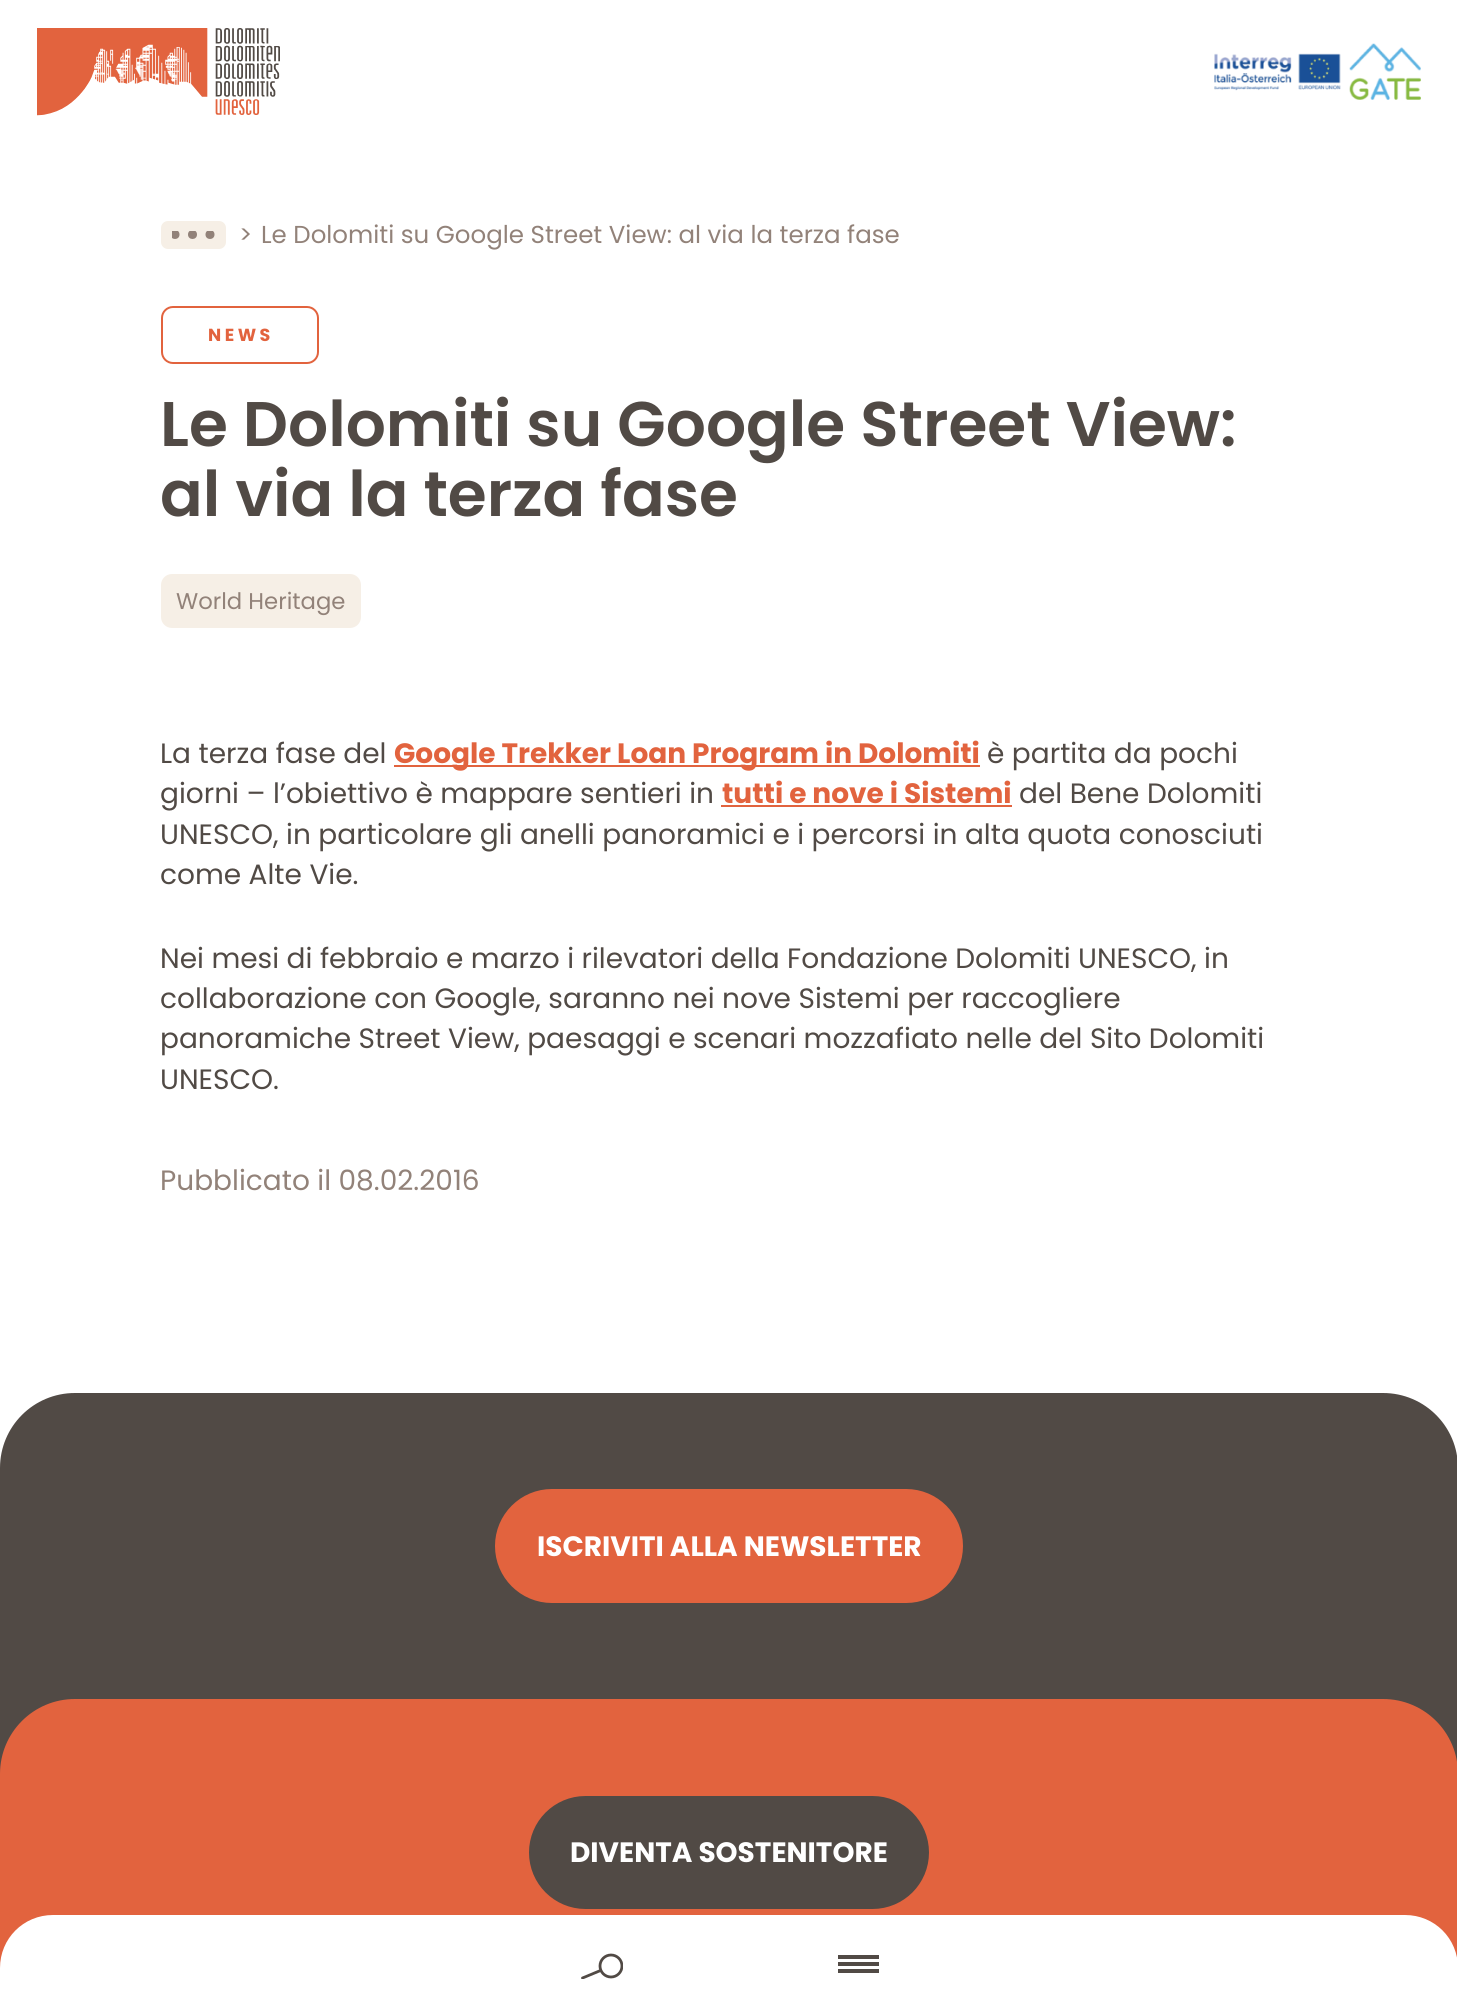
import math
import cairo


def write_spaced(ctx, x, y, s, letter, word):
	ctx.move_to(x, y)
	for ch in s:
		ctx.show_text(ch)
		ctx.rel_move_to(letter + word * (ch == ' '), 0)

def round_path(ctx, x, y, w, h, r):
	ctx.new_sub_path()
	for i, (u, v) in enumerate([(x + w - r, y + h - r), (x + r, y + h - r), (x + r, y + r), (x + w - r, y + r)]):
		ctx.arc(u, v, r, i * math.pi / 2, (i + 1) * math.pi / 2)
	ctx.close_path()

def paste(ctx, path, x, y, w, h):
	ctx.save()
	ctx.set_source_surface(cairo.ImageSurface.create_from_png(path), x, y)
	ctx.rectangle(x, y, w, h)
	ctx.fill()
	ctx.restore()

def draw(ctx):
	ctx.set_source_rgb(1, 1, 1)
	ctx.paint()
	paste(ctx, 'media/1.png', 37, 28, 243, 88)
	paste(ctx, 'media/2.png', 1214, 43, 207, 57)
	ctx.set_source_rgb(0.318, 0.29, 0.271)
	ctx.new_path()
	ctx.move_to(75, 1393)
	ctx.line_to(1383, 1393)
	ctx.curve_to(1424.5, 1393, 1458, 1426.5, 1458, 1468)
	ctx.line_to(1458, 1796)
	ctx.line_to(0, 1796)
	ctx.line_to(0, 1468)
	ctx.curve_to(0, 1426.5, 33.5, 1393, 75, 1393)
	ctx.close_path()
	ctx.fill()
	ctx.set_source_rgb(0.886, 0.388, 0.243)
	ctx.new_path()
	ctx.move_to(75, 1699)
	ctx.line_to(1383, 1699)
	ctx.curve_to(1424.5, 1699, 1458, 1732.5, 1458, 1774)
	ctx.line_to(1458, 2006)
	ctx.line_to(0, 2006)
	ctx.line_to(0, 1774)
	ctx.curve_to(0, 1732.5, 33.5, 1699, 75, 1699)
	ctx.close_path()
	ctx.fill()
	ctx.set_source_rgb(1, 1, 1)
	ctx.new_path()
	ctx.move_to(53, 1915)
	ctx.line_to(1405, 1915)
	ctx.curve_to(1434.5, 1915, 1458, 1938.5, 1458, 1968)
	ctx.line_to(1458, 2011)
	ctx.line_to(0, 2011)
	ctx.line_to(0, 1968)
	ctx.curve_to(0, 1938.5, 23.5, 1915, 53, 1915)
	ctx.close_path()
	ctx.fill()
	ctx.save()
	ctx.rectangle(581, 1953, 42, 26)
	ctx.clip()
	ctx.arc(611, 1966, 11, 0, 2 * math.pi)
	ctx.set_source_rgb(0.318, 0.29, 0.271)
	ctx.set_line_width(2.8)
	ctx.stroke()
	ctx.new_path()
	ctx.move_to(600.5, 1970.5)
	ctx.line_to(582.5, 1978)
	ctx.set_line_cap(cairo.LINE_CAP_ROUND)
	ctx.stroke()
	ctx.restore()
	ctx.set_source_rgb(0.318, 0.29, 0.271)
	ctx.rectangle(838, 1962, 41, 4)
	ctx.rectangle(838, 1955, 41, 4)
	ctx.rectangle(838, 1969, 41, 4)
	ctx.fill()
	ctx.set_source_rgb(0.961, 0.937, 0.902)
	round_path(ctx, 161, 221, 65, 28, 7)
	ctx.fill()
	ctx.save()
	ctx.rectangle(172, 231, 43, 9)
	ctx.clip()
	ctx.set_source_rgb(0.573, 0.51, 0.475)
	ctx.arc(175, 234.5, 4.5, 0, 2 * math.pi)
	ctx.fill()
	ctx.arc(192.5, 234.5, 4.5, 0, 2 * math.pi)
	ctx.fill()
	ctx.arc(210, 234.5, 4.5, 0, 2 * math.pi)
	ctx.fill()
	ctx.restore()
	ctx.select_font_face('Poppins')
	ctx.set_font_size(24.5)
	ctx.set_source_rgb(0.573, 0.51, 0.475)
	ctx.move_to(239, 243)
	ctx.show_text('>')
	ctx.move_to(261, 243)
	ctx.show_text('Le Dolomiti su Google Street View: al via la terza fase')
	round_path(ctx, 162, 307, 156, 56, 11)
	ctx.set_source_rgb(0.886, 0.388, 0.243)
	ctx.stroke()
	ctx.select_font_face('Poppins', cairo.FONT_SLANT_NORMAL, cairo.FONT_WEIGHT_BOLD)
	ctx.set_font_size(17.5)
	write_spaced(ctx, 208, 341, 'NEWS', 3.5, 0)
	ctx.select_font_face('Poppins SemiBold')
	ctx.set_font_size(63)
	ctx.set_source_rgb(0.318, 0.29, 0.271)
	ctx.move_to(160, 446)
	ctx.show_text('Le Dolomiti su Google Street View:')
	ctx.move_to(160, 516)
	ctx.show_text('al via la terza fase')
	ctx.set_source_rgb(0.961, 0.937, 0.902)
	round_path(ctx, 162, 575, 198, 52, 10)
	ctx.fill_preserve()
	ctx.stroke()
	ctx.select_font_face('Poppins')
	ctx.set_font_size(22.75)
	ctx.set_source_rgb(0.573, 0.51, 0.475)
	ctx.move_to(176, 609)
	ctx.show_text('World Heritage')
	ctx.set_font_size(28)
	ctx.set_source_rgb(0.318, 0.29, 0.271)
	ctx.move_to(160, 763)
	ctx.show_text('La terza fase del')
	ctx.set_source_rgb(0.886, 0.388, 0.243)
	ctx.rectangle(394, 765, 586, 2)
	ctx.fill()
	ctx.select_font_face('Poppins', cairo.FONT_SLANT_NORMAL, cairo.FONT_WEIGHT_BOLD)
	ctx.move_to(394, 763)
	ctx.show_text('Google Trekker Loan Program in Dolomiti')
	ctx.select_font_face('Poppins')
	ctx.set_source_rgb(0.318, 0.29, 0.271)
	ctx.move_to(987, 763)
	ctx.show_text('è partita da pochi')
	ctx.move_to(160, 803)
	ctx.show_text('giorni – l’obiettivo è mappare sentieri in')
	ctx.select_font_face('Poppins', cairo.FONT_SLANT_NORMAL, cairo.FONT_WEIGHT_BOLD)
	ctx.set_source_rgb(0.886, 0.388, 0.243)
	ctx.move_to(722, 803)
	ctx.show_text('tutti e nove i Sistemi')
	ctx.rectangle(721, 805, 291, 2)
	ctx.fill()
	ctx.select_font_face('Poppins')
	ctx.set_source_rgb(0.318, 0.29, 0.271)
	for x, y, s in [
		(1019, 803, 'del Bene Dolomiti'),
		(160, 844, 'UNESCO, in particolare gli anelli panoramici e i percorsi in alta quota conosciuti'),
		(160, 884, 'come Alte Vie.'),
		(160, 968, 'Nei mesi di febbraio e marzo i rilevatori della Fondazione Dolomiti UNESCO, in'),
		(160, 1008, 'collaborazione con Google, saranno nei nove Sistemi per raccogliere'),
		(160, 1048, 'panoramiche Street View, paesaggi e scenari mozzafiato nelle del Sito Dolomiti'),
		(160, 1089, 'UNESCO.'),
	]:
		ctx.move_to(x, y)
		ctx.show_text(s)
	ctx.set_source_rgb(0.573, 0.51, 0.475)
	ctx.move_to(160, 1190)
	ctx.show_text('Pubblicato il 08.02.2016')
	ctx.set_source_rgb(0.886, 0.388, 0.243)
	round_path(ctx, 496, 1490, 466, 112, 56)
	ctx.fill_preserve()
	ctx.stroke()
	ctx.select_font_face('Poppins', cairo.FONT_SLANT_NORMAL, cairo.FONT_WEIGHT_BOLD)
	ctx.set_source_rgb(1, 1, 1)
	ctx.move_to(537, 1556)
	ctx.show_text('ISCRIVITI ALLA NEWSLETTER')
	ctx.set_source_rgb(0.318, 0.29, 0.271)
	round_path(ctx, 530, 1797, 398, 111, 55.5)
	ctx.fill_preserve()
	ctx.stroke()
	ctx.set_source_rgb(1, 1, 1)
	ctx.move_to(570, 1862)
	ctx.show_text('DIVENTA SOSTENITORE')


surface = cairo.ImageSurface(cairo.FORMAT_RGB24, 1457, 2010)
ctx = cairo.Context(surface)
options = cairo.FontOptions()
options.set_hint_metrics(cairo.HINT_METRICS_OFF)
options.set_hint_style(cairo.HINT_STYLE_NONE)
ctx.set_font_options(options)
ctx.set_miter_limit(4)
draw(ctx)
surface.write_to_png('image.png')
